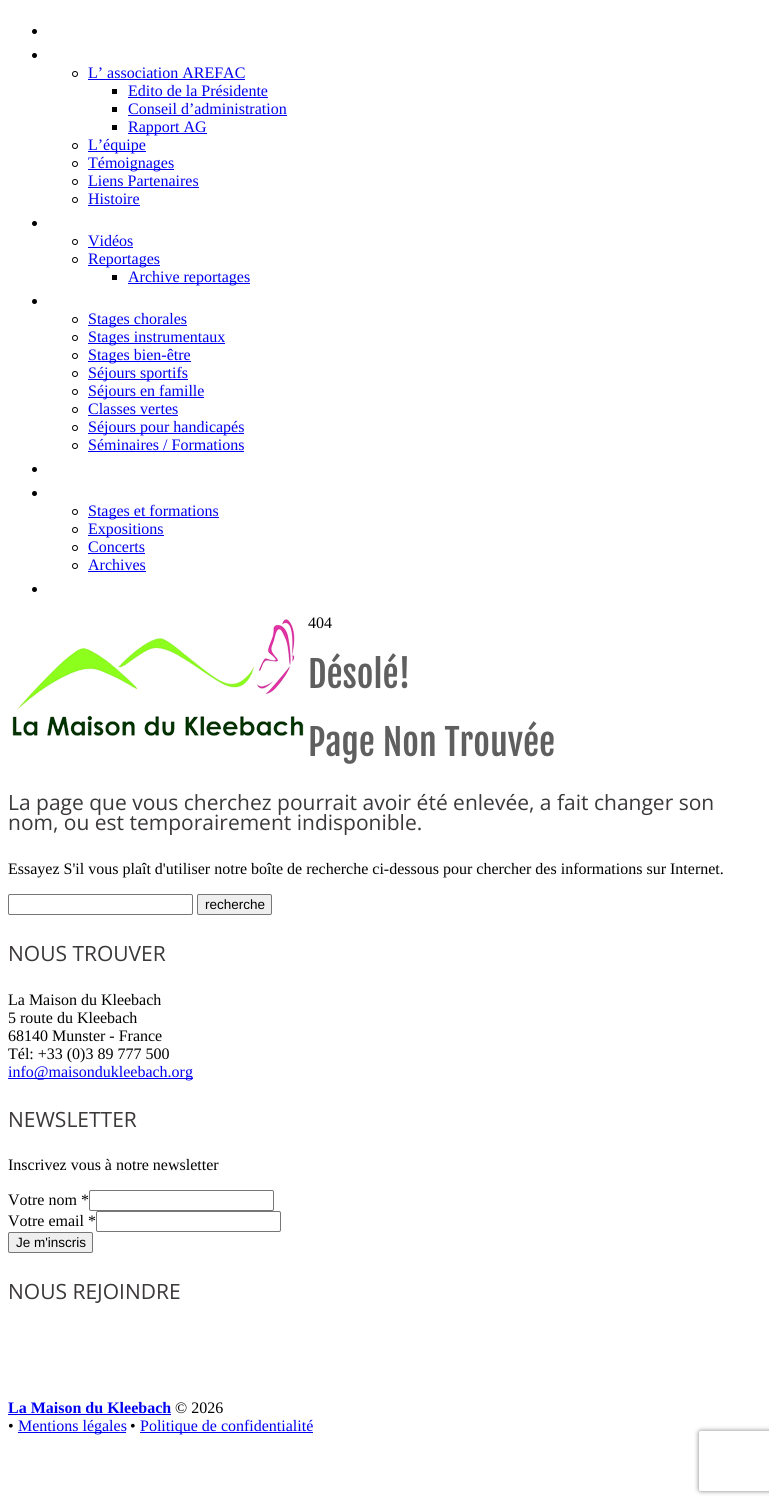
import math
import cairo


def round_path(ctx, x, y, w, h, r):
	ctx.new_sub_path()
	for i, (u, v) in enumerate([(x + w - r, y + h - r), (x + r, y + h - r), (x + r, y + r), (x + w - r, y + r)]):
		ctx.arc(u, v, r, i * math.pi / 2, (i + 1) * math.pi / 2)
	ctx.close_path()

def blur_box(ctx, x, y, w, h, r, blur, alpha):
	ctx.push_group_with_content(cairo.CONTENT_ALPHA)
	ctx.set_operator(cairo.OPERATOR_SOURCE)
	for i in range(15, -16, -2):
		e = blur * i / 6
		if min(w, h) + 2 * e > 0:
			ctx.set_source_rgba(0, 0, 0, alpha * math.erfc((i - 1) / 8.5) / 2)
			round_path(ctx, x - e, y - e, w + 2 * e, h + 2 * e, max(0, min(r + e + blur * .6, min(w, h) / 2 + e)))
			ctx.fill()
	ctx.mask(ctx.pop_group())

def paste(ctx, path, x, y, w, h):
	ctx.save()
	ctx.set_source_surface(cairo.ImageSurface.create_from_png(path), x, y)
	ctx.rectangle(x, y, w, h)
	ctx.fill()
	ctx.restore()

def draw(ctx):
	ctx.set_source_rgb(1, 1, 1)
	ctx.paint()
	ctx.set_source_rgb(0, 0, 0)
	ctx.arc(34.5, 31.5, 2.5, 0, 2 * math.pi)
	ctx.fill()
	ctx.arc(34.5, 55.5, 2.5, 0, 2 * math.pi)
	ctx.fill()
	ctx.arc(75, 74, 2.5, 0, 2 * math.pi)
	ctx.set_line_width(1)
	ctx.stroke()
	ctx.select_font_face('Liberation Serif')
	ctx.set_font_size(16)
	ctx.set_source_rgb(0, 0, 0.933)
	ctx.move_to(88, 78)
	ctx.show_text('L’ association AREFAC')
	ctx.rectangle(88, 79, 157, 1)
	ctx.fill()
	ctx.set_source_rgb(0, 0, 0)
	ctx.rectangle(112, 89, 5, 5)
	ctx.fill()
	ctx.set_source_rgb(0, 0, 0.933)
	ctx.move_to(128, 96)
	ctx.show_text('Edito de la Présidente')
	ctx.rectangle(128, 97, 140, 1)
	ctx.fill()
	ctx.set_source_rgb(0, 0, 0)
	ctx.rectangle(112, 107, 5, 5)
	ctx.fill()
	ctx.set_source_rgb(0, 0, 0.933)
	ctx.move_to(128, 114)
	ctx.show_text('Conseil d’administration')
	ctx.rectangle(128, 115, 159, 1)
	ctx.fill()
	ctx.set_source_rgb(0, 0, 0)
	ctx.rectangle(112, 125, 5, 5)
	ctx.fill()
	ctx.set_source_rgb(0, 0, 0.933)
	ctx.rectangle(128, 133, 79, 1)
	ctx.fill()
	ctx.move_to(128, 132)
	ctx.show_text('Rapport AG')
	ctx.new_path()
	ctx.arc(75, 146, 2.5, 0, 2 * math.pi)
	ctx.set_source_rgb(0, 0, 0)
	ctx.stroke()
	ctx.set_source_rgb(0, 0, 0.933)
	ctx.rectangle(88, 151, 58, 1)
	ctx.fill()
	ctx.move_to(88, 150)
	ctx.show_text('L’équipe')
	ctx.new_path()
	ctx.arc(75, 164, 2.5, 0, 2 * math.pi)
	ctx.set_source_rgb(0, 0, 0)
	ctx.stroke()
	ctx.set_source_rgb(0, 0, 0.933)
	ctx.rectangle(88, 169, 86, 1)
	ctx.fill()
	ctx.move_to(88, 168)
	ctx.show_text('Témoignages')
	ctx.new_path()
	ctx.arc(75, 182, 2.5, 0, 2 * math.pi)
	ctx.set_source_rgb(0, 0, 0)
	ctx.stroke()
	ctx.set_source_rgb(0, 0, 0.933)
	ctx.move_to(88, 186)
	ctx.show_text('Liens Partenaires')
	ctx.rectangle(88, 187, 111, 1)
	ctx.fill()
	ctx.arc(75, 200, 2.5, 0, 2 * math.pi)
	ctx.set_source_rgb(0, 0, 0)
	ctx.stroke()
	ctx.set_source_rgb(0, 0, 0.933)
	ctx.move_to(88, 204)
	ctx.show_text('Histoire')
	ctx.rectangle(88, 205, 52, 1)
	ctx.fill()
	ctx.set_source_rgb(0, 0, 0)
	ctx.arc(34.5, 223.5, 2.5, 0, 2 * math.pi)
	ctx.fill()
	ctx.arc(75, 242, 2.5, 0, 2 * math.pi)
	ctx.stroke()
	ctx.set_source_rgb(0, 0, 0.933)
	ctx.move_to(88, 246)
	ctx.show_text('Vidéos')
	ctx.rectangle(88, 247, 45, 1)
	ctx.fill()
	ctx.arc(75, 260, 2.5, 0, 2 * math.pi)
	ctx.set_source_rgb(0, 0, 0)
	ctx.stroke()
	ctx.set_source_rgb(0, 0, 0.933)
	ctx.rectangle(88, 265, 72, 1)
	ctx.fill()
	ctx.move_to(88, 264)
	ctx.show_text('Reportages')
	ctx.set_source_rgb(0, 0, 0)
	ctx.rectangle(112, 275, 5, 5)
	ctx.fill()
	ctx.set_source_rgb(0, 0, 0.933)
	ctx.rectangle(128, 283, 122, 1)
	ctx.fill()
	ctx.move_to(128, 282)
	ctx.show_text('Archive reportages')
	ctx.set_source_rgb(0, 0, 0)
	ctx.new_path()
	ctx.arc(34.5, 301.5, 2.5, 0, 2 * math.pi)
	ctx.fill()
	ctx.arc(75, 320, 2.5, 0, 2 * math.pi)
	ctx.stroke()
	ctx.set_source_rgb(0, 0, 0.933)
	ctx.rectangle(88, 325, 99, 1)
	ctx.fill()
	ctx.move_to(88, 324)
	ctx.show_text('Stages chorales')
	ctx.new_path()
	ctx.arc(75, 338, 2.5, 0, 2 * math.pi)
	ctx.set_source_rgb(0, 0, 0)
	ctx.stroke()
	ctx.set_source_rgb(0, 0, 0.933)
	ctx.rectangle(88, 343, 137, 1)
	ctx.fill()
	ctx.move_to(88, 342)
	ctx.show_text('Stages instrumentaux')
	ctx.new_path()
	ctx.arc(75, 356, 2.5, 0, 2 * math.pi)
	ctx.set_source_rgb(0, 0, 0)
	ctx.stroke()
	ctx.set_source_rgb(0, 0, 0.933)
	ctx.rectangle(88, 361, 103, 1)
	ctx.fill()
	ctx.move_to(88, 360)
	ctx.show_text('Stages bien-être')
	ctx.new_path()
	ctx.arc(75, 374, 2.5, 0, 2 * math.pi)
	ctx.set_source_rgb(0, 0, 0)
	ctx.stroke()
	ctx.set_source_rgb(0, 0, 0.933)
	ctx.rectangle(88, 379, 100, 1)
	ctx.fill()
	ctx.move_to(88, 378)
	ctx.show_text('Séjours sportifs')
	ctx.new_path()
	ctx.arc(75, 392, 2.5, 0, 2 * math.pi)
	ctx.set_source_rgb(0, 0, 0)
	ctx.stroke()
	ctx.set_source_rgb(0, 0, 0.933)
	ctx.rectangle(88, 397, 116, 1)
	ctx.fill()
	ctx.move_to(88, 396)
	ctx.show_text('Séjours en famille')
	ctx.new_path()
	ctx.arc(75, 410, 2.5, 0, 2 * math.pi)
	ctx.set_source_rgb(0, 0, 0)
	ctx.stroke()
	ctx.set_source_rgb(0, 0, 0.933)
	ctx.move_to(88, 414)
	ctx.show_text('Classes vertes')
	ctx.rectangle(88, 415, 90, 1)
	ctx.fill()
	ctx.arc(75, 428, 2.5, 0, 2 * math.pi)
	ctx.set_source_rgb(0, 0, 0)
	ctx.stroke()
	ctx.set_source_rgb(0, 0, 0.933)
	ctx.rectangle(88, 433, 156, 1)
	ctx.fill()
	ctx.move_to(88, 432)
	ctx.show_text('Séjours pour handicapés')
	ctx.new_path()
	ctx.arc(75, 446, 2.5, 0, 2 * math.pi)
	ctx.set_source_rgb(0, 0, 0)
	ctx.stroke()
	ctx.set_source_rgb(0, 0, 0.933)
	ctx.move_to(88, 450)
	ctx.show_text('Séminaires / Formations')
	ctx.rectangle(88, 451, 156, 1)
	ctx.fill()
	ctx.set_source_rgb(0, 0, 0)
	ctx.arc(34.5, 469.5, 2.5, 0, 2 * math.pi)
	ctx.fill()
	ctx.arc(34.5, 493.5, 2.5, 0, 2 * math.pi)
	ctx.fill()
	ctx.arc(75, 512, 2.5, 0, 2 * math.pi)
	ctx.stroke()
	ctx.set_source_rgb(0, 0, 0.933)
	ctx.rectangle(88, 517, 131, 1)
	ctx.fill()
	ctx.move_to(88, 516)
	ctx.show_text('Stages et formations')
	ctx.new_path()
	ctx.arc(75, 530, 2.5, 0, 2 * math.pi)
	ctx.set_source_rgb(0, 0, 0)
	ctx.stroke()
	ctx.set_source_rgb(0, 0, 0.933)
	ctx.rectangle(88, 535, 76, 1)
	ctx.fill()
	ctx.move_to(88, 534)
	ctx.show_text('Expositions')
	ctx.new_path()
	ctx.arc(75, 548, 2.5, 0, 2 * math.pi)
	ctx.set_source_rgb(0, 0, 0)
	ctx.stroke()
	ctx.set_source_rgb(0, 0, 0.933)
	ctx.move_to(88, 552)
	ctx.show_text('Concerts')
	ctx.rectangle(88, 553, 57, 1)
	ctx.fill()
	ctx.arc(75, 566, 2.5, 0, 2 * math.pi)
	ctx.set_source_rgb(0, 0, 0)
	ctx.stroke()
	ctx.set_source_rgb(0, 0, 0.933)
	ctx.move_to(88, 570)
	ctx.show_text('Archives')
	ctx.rectangle(88, 571, 58, 1)
	ctx.fill()
	ctx.set_source_rgb(0, 0, 0)
	ctx.arc(34.5, 589.5, 2.5, 0, 2 * math.pi)
	ctx.fill()
	paste(ctx, 'media/1.png', 12, 619, 292, 117)
	ctx.move_to(308, 628)
	ctx.show_text('404')
	ctx.select_font_face('Fjalla One')
	ctx.set_font_size(36)
	ctx.set_source_rgb(0.373, 0.373, 0.373)
	ctx.move_to(308, 688)
	ctx.show_text('Désolé!')
	ctx.move_to(308, 756)
	ctx.show_text('Page Non Trouvée')
	ctx.select_font_face('Open Sans')
	ctx.set_font_size(21)
	ctx.set_source_rgb(0.231, 0.22, 0.22)
	ctx.move_to(8, 810)
	ctx.show_text('La page que vous cherchez pourrait avoir été enlevée, a fait changer son')
	ctx.move_to(8, 830)
	ctx.show_text('nom, ou est temporairement indisponible.')
	ctx.select_font_face('Liberation Serif')
	ctx.set_font_size(16)
	ctx.set_source_rgb(0, 0, 0)
	ctx.move_to(8, 874)
	ctx.show_text('Essayez S\'il vous plaît d\'utiliser notre boîte de recherche ci-dessous pour chercher des informations sur Internet.')
	round_path(ctx, 8.5, 894.5, 184, 20, 1.5)
	ctx.set_source_rgb(0.463, 0.463, 0.463)
	ctx.stroke()
	ctx.set_source_rgb(0.937, 0.937, 0.937)
	round_path(ctx, 197.5, 894.5, 74, 20, 1.5)
	ctx.fill_preserve()
	ctx.set_source_rgb(0.463, 0.463, 0.463)
	ctx.stroke()
	ctx.select_font_face('Liberation Sans')
	ctx.set_font_size(13.5)
	ctx.set_source_rgb(0, 0, 0)
	ctx.move_to(205, 909)
	ctx.show_text('recherche')
	ctx.select_font_face('Open Sans')
	ctx.set_font_size(21)
	ctx.set_source_rgb(0.231, 0.22, 0.22)
	ctx.move_to(8, 961)
	ctx.show_text('NOUS TROUVER')
	ctx.select_font_face('Liberation Serif')
	ctx.set_font_size(16)
	ctx.set_source_rgb(0, 0, 0)
	for x, y, s in [
		(8, 1005, 'La Maison du Kleebach'),
		(8, 1023, '5 route du Kleebach'),
		(8, 1041, '68140 Munster - France'),
		(8, 1059, 'Tél: +33 (0)3 89 777 500'),
	]:
		ctx.move_to(x, y)
		ctx.show_text(s)
	ctx.set_source_rgb(0, 0, 0.933)
	ctx.rectangle(8, 1078, 185, 1)
	ctx.fill()
	ctx.move_to(8, 1077)
	ctx.show_text('info@maisondukleebach.org')
	ctx.select_font_face('Open Sans')
	ctx.set_font_size(21)
	ctx.set_source_rgb(0.231, 0.22, 0.22)
	ctx.move_to(8, 1127)
	ctx.show_text('NEWSLETTER')
	ctx.select_font_face('Liberation Serif')
	ctx.set_font_size(16)
	ctx.set_source_rgb(0, 0, 0)
	ctx.move_to(8, 1170)
	ctx.show_text('Inscrivez vous à notre newsletter')
	ctx.move_to(8, 1205)
	ctx.show_text('Votre nom *')
	round_path(ctx, 89.5, 1190.5, 184, 20, 1.5)
	ctx.set_source_rgb(0.463, 0.463, 0.463)
	ctx.stroke()
	ctx.set_source_rgb(0, 0, 0)
	ctx.move_to(8, 1226)
	ctx.show_text('Votre email *')
	round_path(ctx, 96.5, 1211.5, 184, 20, 1.5)
	ctx.set_source_rgb(0.463, 0.463, 0.463)
	ctx.stroke()
	ctx.set_source_rgb(0.937, 0.937, 0.937)
	round_path(ctx, 8.5, 1232.5, 84, 20, 1.5)
	ctx.fill_preserve()
	ctx.set_source_rgb(0.463, 0.463, 0.463)
	ctx.stroke()
	ctx.select_font_face('Liberation Sans')
	ctx.set_font_size(13.5)
	ctx.set_source_rgb(0, 0, 0)
	ctx.move_to(16, 1247)
	ctx.show_text('Je m\'inscris')
	ctx.select_font_face('Open Sans')
	ctx.set_font_size(21)
	ctx.set_source_rgb(0.231, 0.22, 0.22)
	ctx.move_to(8, 1299)
	ctx.show_text('NOUS REJOINDRE')
	ctx.select_font_face('Liberation Serif', cairo.FONT_SLANT_NORMAL, cairo.FONT_WEIGHT_BOLD)
	ctx.set_font_size(16)
	ctx.set_source_rgb(0, 0, 0.933)
	ctx.move_to(8, 1413)
	ctx.show_text('La Maison du Kleebach')
	ctx.rectangle(8, 1414, 163, 1)
	ctx.fill()
	ctx.select_font_face('Liberation Serif')
	ctx.set_source_rgb(0, 0, 0)
	ctx.move_to(175, 1413)
	ctx.show_text('© 2026')
	ctx.move_to(8, 1431)
	ctx.show_text('•')
	ctx.set_source_rgb(0, 0, 0.933)
	ctx.rectangle(18, 1432, 108, 1)
	ctx.fill()
	ctx.move_to(18, 1431)
	ctx.show_text('Mentions légales')
	ctx.set_source_rgb(0, 0, 0)
	ctx.move_to(130, 1431)
	ctx.show_text('•')
	ctx.set_source_rgb(0, 0, 0.933)
	ctx.rectangle(140, 1432, 173, 1)
	ctx.fill()
	ctx.move_to(140, 1431)
	ctx.show_text('Politique de confidentialité')
	ctx.save()
	ctx.set_fill_rule(cairo.FILL_RULE_EVEN_ODD)
	ctx.new_path()
	ctx.move_to(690, 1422)
	ctx.line_to(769, 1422)
	ctx.line_to(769, 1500)
	ctx.line_to(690, 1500)
	ctx.close_path()
	ctx.move_to(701, 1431)
	ctx.line_to(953, 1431)
	ctx.curve_to(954, 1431, 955, 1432, 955, 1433)
	ctx.line_to(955, 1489)
	ctx.curve_to(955, 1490, 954, 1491, 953, 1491)
	ctx.line_to(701, 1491)
	ctx.curve_to(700, 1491, 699, 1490, 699, 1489)
	ctx.line_to(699, 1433)
	ctx.curve_to(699, 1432, 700, 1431, 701, 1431)
	ctx.close_path()
	ctx.clip()
	ctx.set_source_rgb(0.502, 0.502, 0.502)
	blur_box(ctx, 699, 1431, 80, 60, 2, 2.5, 1)
	ctx.restore()


surface = cairo.ImageSurface(cairo.FORMAT_RGB24, 769, 1505)
ctx = cairo.Context(surface)
options = cairo.FontOptions()
options.set_hint_metrics(cairo.HINT_METRICS_OFF)
options.set_hint_style(cairo.HINT_STYLE_NONE)
ctx.set_font_options(options)
ctx.set_miter_limit(4)
draw(ctx)
surface.write_to_png('image.png')
